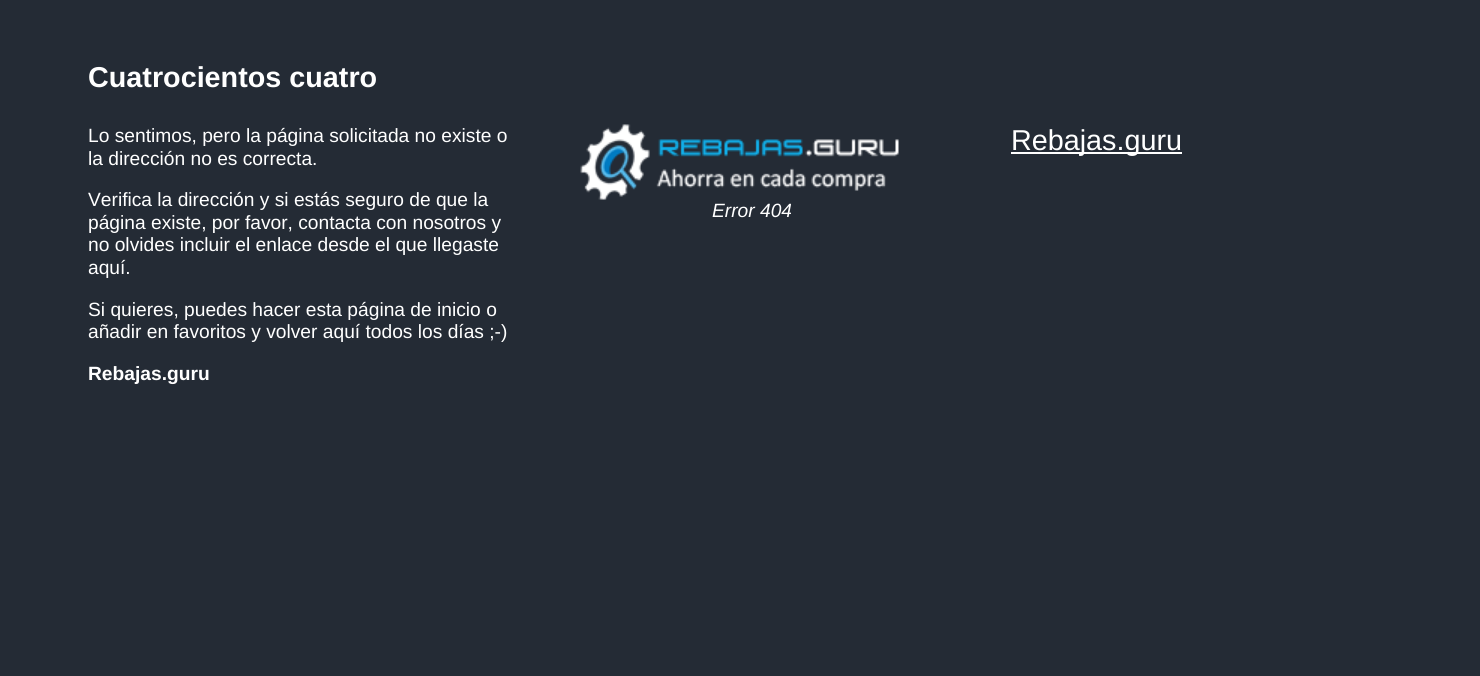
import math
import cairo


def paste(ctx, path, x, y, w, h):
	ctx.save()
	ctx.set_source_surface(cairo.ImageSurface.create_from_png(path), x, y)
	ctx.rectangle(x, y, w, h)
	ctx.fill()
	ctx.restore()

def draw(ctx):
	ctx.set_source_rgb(0.141, 0.169, 0.208)
	ctx.paint()
	ctx.select_font_face('Liberation Sans', cairo.FONT_SLANT_NORMAL, cairo.FONT_WEIGHT_BOLD)
	ctx.set_font_size(28.75)
	ctx.set_source_rgb(1, 1, 1)
	ctx.move_to(88, 87)
	ctx.show_text('Cuatrocientos cuatro')
	ctx.select_font_face('Liberation Sans')
	ctx.set_font_size(19.2)
	for x, y, s in [
		(88, 142, 'Lo sentimos, pero la página solicitada no existe o'),
		(88, 165, 'la dirección no es correcta.'),
		(88, 206, 'Verifica la dirección y si estás seguro de que la'),
		(88, 229, 'página existe, por favor, contacta con nosotros y'),
		(88, 251, 'no olvides incluir el enlace desde el que llegaste'),
		(88, 274, 'aquí.'),
		(88, 316, 'Si quieres, puedes hacer esta página de inicio o'),
		(88, 338, 'añadir en favoritos y volver aquí todos los días ;-)'),
	]:
		ctx.move_to(x, y)
		ctx.show_text(s)
	ctx.select_font_face('Liberation Sans', cairo.FONT_SLANT_NORMAL, cairo.FONT_WEIGHT_BOLD)
	ctx.move_to(88, 380)
	ctx.show_text('Rebajas.guru')
	ctx.rectangle(1011, 152, 171, 2)
	ctx.fill()
	ctx.select_font_face('Liberation Sans')
	ctx.set_font_size(28.75)
	ctx.move_to(1011, 150)
	ctx.show_text('Rebajas.guru')
	paste(ctx, 'media/1.png', 580, 124, 319, 76)
	ctx.select_font_face('Liberation Sans', cairo.FONT_SLANT_ITALIC)
	ctx.set_font_size(19.2)
	ctx.move_to(712, 217)
	ctx.show_text('Error 404')


surface = cairo.ImageSurface(cairo.FORMAT_RGB24, 1480, 676)
ctx = cairo.Context(surface)
options = cairo.FontOptions()
options.set_hint_metrics(cairo.HINT_METRICS_OFF)
options.set_hint_style(cairo.HINT_STYLE_NONE)
ctx.set_font_options(options)
ctx.set_miter_limit(4)
draw(ctx)
surface.write_to_png('image.png')
